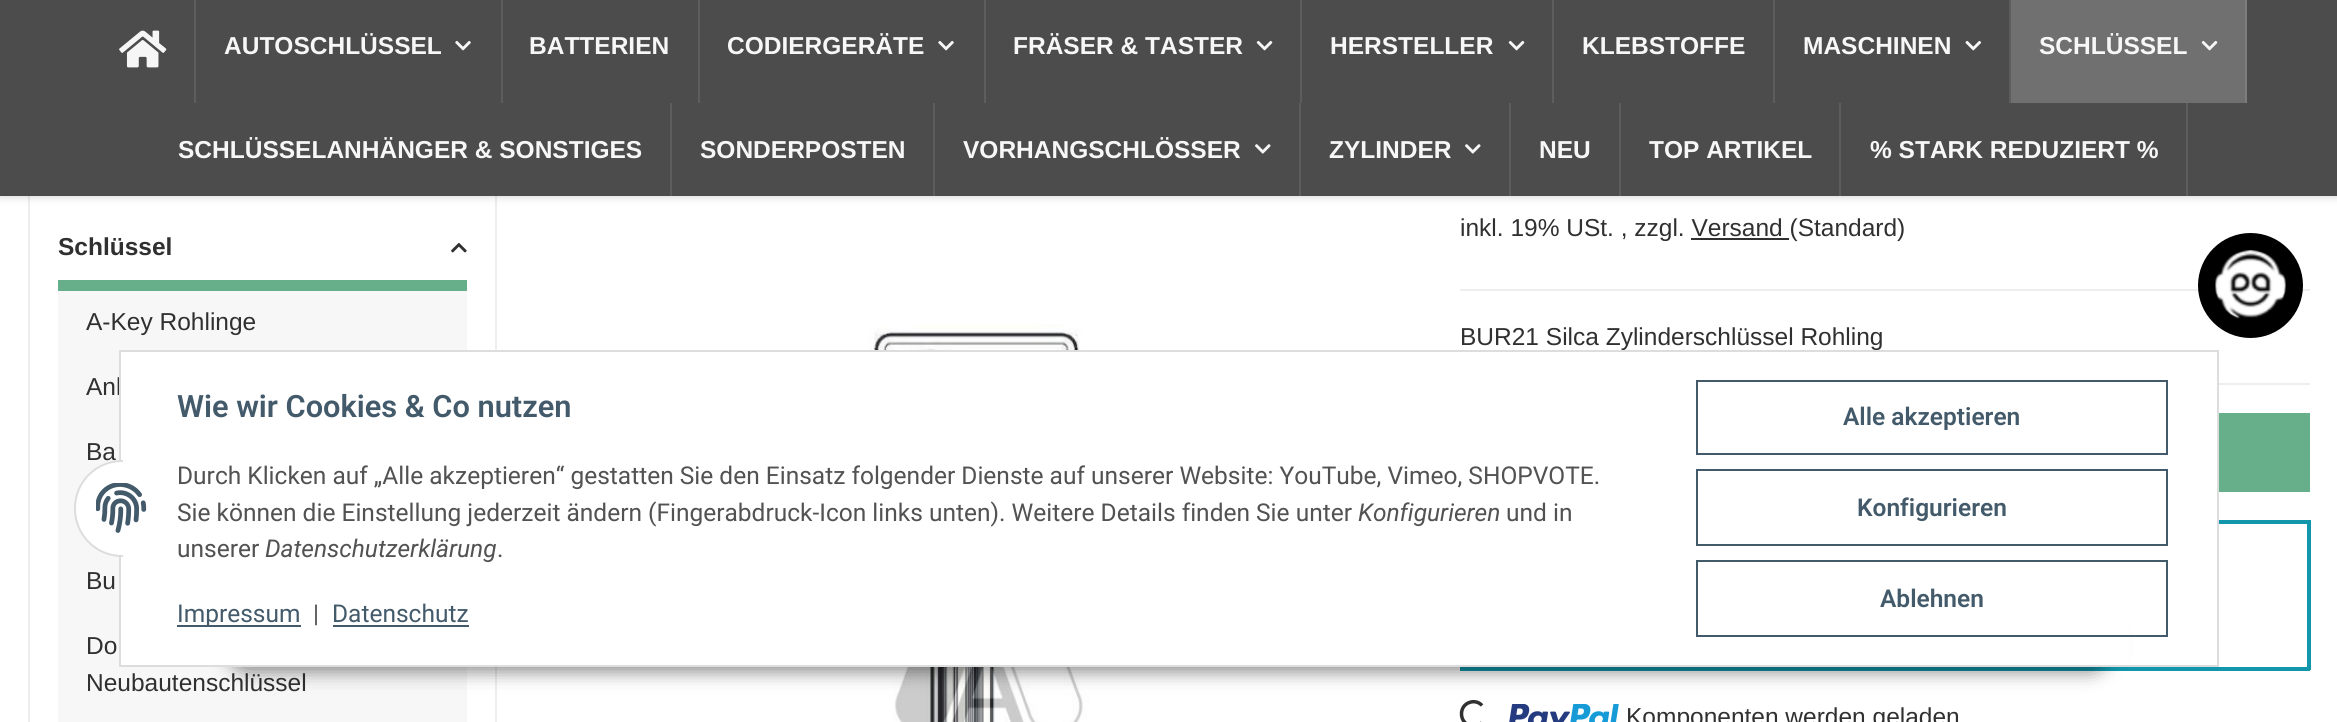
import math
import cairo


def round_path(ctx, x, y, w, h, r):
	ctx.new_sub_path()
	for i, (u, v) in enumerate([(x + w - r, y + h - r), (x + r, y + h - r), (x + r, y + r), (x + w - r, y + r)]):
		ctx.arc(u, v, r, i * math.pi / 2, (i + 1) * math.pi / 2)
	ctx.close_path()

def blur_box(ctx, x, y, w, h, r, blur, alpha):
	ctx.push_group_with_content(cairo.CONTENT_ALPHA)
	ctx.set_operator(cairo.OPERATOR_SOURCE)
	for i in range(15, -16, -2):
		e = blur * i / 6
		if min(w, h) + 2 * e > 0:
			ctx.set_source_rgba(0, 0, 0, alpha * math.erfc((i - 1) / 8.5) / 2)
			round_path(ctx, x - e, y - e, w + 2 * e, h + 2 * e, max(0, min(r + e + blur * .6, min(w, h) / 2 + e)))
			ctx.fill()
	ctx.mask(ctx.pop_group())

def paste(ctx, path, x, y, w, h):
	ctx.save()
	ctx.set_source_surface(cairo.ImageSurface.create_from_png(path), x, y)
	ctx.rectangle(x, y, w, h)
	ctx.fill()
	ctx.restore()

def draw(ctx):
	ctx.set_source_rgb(1, 1, 1)
	ctx.paint()
	ctx.rectangle(29, -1, 467, 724)
	ctx.set_source_rgb(0.933, 0.933, 0.933)
	ctx.stroke()
	ctx.set_source_rgb(0, 0, 0)
	blur_box(ctx, 0, -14, 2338, 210, 0, 4.5, 0.2)
	ctx.set_source_rgb(0.298, 0.298, 0.298)
	ctx.rectangle(0, 0, 2337, 196)
	ctx.fill()
	ctx.set_source_rgb(0.365, 0.365, 0.365)
	ctx.rectangle(194, 0, 2, 103)
	ctx.fill()
	paste(ctx, 'media/1.png', 119, 30, 48, 38)
	ctx.rectangle(501, 0, 2, 103)
	ctx.fill()
	ctx.select_font_face('Liberation Sans', cairo.FONT_SLANT_NORMAL, cairo.FONT_WEIGHT_BOLD)
	ctx.set_font_size(24.5)
	ctx.set_source_rgb(0.965, 0.965, 0.965)
	ctx.move_to(224, 54)
	ctx.show_text('AUTOSCHLÜSSEL')
	paste(ctx, 'media/2.png', 455, 40, 16, 11)
	ctx.set_source_rgb(0.365, 0.365, 0.365)
	ctx.rectangle(698, 0, 2, 103)
	ctx.fill()
	ctx.set_source_rgb(0.965, 0.965, 0.965)
	ctx.move_to(529, 54)
	ctx.show_text('BATTERIEN')
	ctx.set_source_rgb(0.365, 0.365, 0.365)
	ctx.rectangle(984, 0, 2, 103)
	ctx.fill()
	ctx.set_source_rgb(0.965, 0.965, 0.965)
	ctx.move_to(727, 54)
	ctx.show_text('CODIERGERÄTE')
	paste(ctx, 'media/2.png', 938, 40, 16, 11)
	ctx.set_source_rgb(0.365, 0.365, 0.365)
	ctx.rectangle(1300, 0, 2, 103)
	ctx.fill()
	ctx.set_source_rgb(0.965, 0.965, 0.965)
	ctx.move_to(1013, 54)
	ctx.show_text('FRÄSER & TASTER')
	paste(ctx, 'media/3.png', 1256, 40, 17, 11)
	ctx.set_source_rgb(0.365, 0.365, 0.365)
	ctx.rectangle(1552, 0, 2, 103)
	ctx.fill()
	ctx.set_source_rgb(0.965, 0.965, 0.965)
	ctx.move_to(1330, 54)
	ctx.show_text('HERSTELLER')
	paste(ctx, 'media/3.png', 1508, 40, 17, 11)
	ctx.set_source_rgb(0.365, 0.365, 0.365)
	ctx.rectangle(1773, 0, 2, 103)
	ctx.fill()
	ctx.set_source_rgb(0.965, 0.965, 0.965)
	ctx.move_to(1582, 54)
	ctx.show_text('KLEBSTOFFE')
	ctx.set_source_rgb(0.365, 0.365, 0.365)
	ctx.rectangle(2009, 0, 2, 103)
	ctx.fill()
	ctx.set_source_rgb(0.965, 0.965, 0.965)
	ctx.move_to(1803, 54)
	ctx.show_text('MASCHINEN')
	paste(ctx, 'media/4.png', 1965, 40, 17, 11)
	ctx.set_source_rgb(0.439, 0.439, 0.439)
	ctx.rectangle(2011, 0, 234, 103)
	ctx.fill()
	ctx.set_source_rgb(0.49, 0.49, 0.49)
	ctx.rectangle(2245, 0, 2, 103)
	ctx.fill()
	ctx.set_source_rgb(0.965, 0.965, 0.965)
	ctx.move_to(2039, 54)
	ctx.show_text('SCHLÜSSEL')
	paste(ctx, 'media/5.png', 2201, 40, 17, 11)
	ctx.set_source_rgb(0.365, 0.365, 0.365)
	ctx.rectangle(670, 103, 2, 93)
	ctx.fill()
	ctx.set_source_rgb(0.965, 0.965, 0.965)
	ctx.move_to(178, 158)
	ctx.show_text('SCHLÜSSELANHÄNGER & SONSTIGES')
	ctx.set_source_rgb(0.365, 0.365, 0.365)
	ctx.rectangle(933, 103, 2, 93)
	ctx.fill()
	ctx.set_source_rgb(0.965, 0.965, 0.965)
	ctx.move_to(700, 158)
	ctx.show_text('SONDERPOSTEN')
	ctx.set_source_rgb(0.365, 0.365, 0.365)
	ctx.rectangle(1299, 103, 2, 93)
	ctx.fill()
	ctx.set_source_rgb(0.965, 0.965, 0.965)
	ctx.move_to(963, 158)
	ctx.show_text('VORHANGSCHLÖSSER')
	paste(ctx, 'media/6.png', 1255, 144, 16, 10)
	ctx.set_source_rgb(0.365, 0.365, 0.365)
	ctx.rectangle(1509, 103, 2, 93)
	ctx.fill()
	ctx.set_source_rgb(0.965, 0.965, 0.965)
	ctx.move_to(1329, 158)
	ctx.show_text('ZYLINDER')
	paste(ctx, 'media/6.png', 1465, 144, 16, 10)
	ctx.set_source_rgb(0.365, 0.365, 0.365)
	ctx.rectangle(1619, 103, 2, 93)
	ctx.fill()
	ctx.set_source_rgb(0.965, 0.965, 0.965)
	ctx.move_to(1539, 158)
	ctx.show_text('NEU')
	ctx.set_source_rgb(0.365, 0.365, 0.365)
	ctx.rectangle(1839, 103, 2, 93)
	ctx.fill()
	ctx.set_source_rgb(0.965, 0.965, 0.965)
	ctx.move_to(1649, 158)
	ctx.show_text('TOP ARTIKEL')
	ctx.set_source_rgb(0.365, 0.365, 0.365)
	ctx.rectangle(2186, 103, 2, 93)
	ctx.fill()
	ctx.set_source_rgb(0.965, 0.965, 0.965)
	ctx.move_to(1870, 158)
	ctx.show_text('% STARK REDUZIERT %')
	ctx.set_source_rgb(0.404, 0.686, 0.541)
	ctx.rectangle(58, 280, 409, 11)
	ctx.fill()
	ctx.set_source_rgb(0.188, 0.188, 0.188)
	ctx.move_to(58, 255)
	ctx.show_text('Schlüssel')
	paste(ctx, 'media/7.png', 451, 242, 16, 11)
	ctx.set_source_rgb(0.965, 0.965, 0.965)
	ctx.rectangle(58, 291, 409, 431)
	ctx.fill()
	ctx.select_font_face('Liberation Sans')
	ctx.set_source_rgb(0.188, 0.188, 0.188)
	for x, y, s in [
		(86, 330, 'A-Key Rohlinge'),
		(86, 395, 'Anl'),
		(86, 460, 'Ba'),
		(86, 589, 'Bu'),
		(86, 654, 'Do'),
		(86, 691, 'Neubautenschlüssel'),
		(1460, 236, 'inkl. 19% USt. , zzgl. Versand (Standard)'),
	]:
		ctx.move_to(x, y)
		ctx.show_text(s)
	ctx.rectangle(1691, 238, 98, 2)
	ctx.fill()
	paste(ctx, 'media/8.png', 868, 324, 246, 398)
	ctx.set_source_rgb(0.933, 0.933, 0.933)
	ctx.rectangle(1460, 289, 850, 2)
	ctx.fill()
	ctx.set_source_rgb(0.188, 0.188, 0.188)
	ctx.move_to(1460, 345)
	ctx.show_text('BUR21 Silca Zylinderschlüssel Rohling')
	ctx.set_source_rgb(0.933, 0.933, 0.933)
	ctx.rectangle(2219, 383, 91, 2)
	ctx.fill()
	ctx.set_source_rgb(0.404, 0.686, 0.541)
	ctx.rectangle(2219, 413, 91, 79)
	ctx.fill()
	ctx.set_source_rgb(0.067, 0.588, 0.671)
	ctx.rectangle(2219, 520, 91, 4)
	ctx.rectangle(2307, 520, 4, 150)
	ctx.rectangle(1460, 667, 850, 4)
	ctx.fill()
	ctx.new_path()
	ctx.move_to(1482, 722.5)
	ctx.curve_to(1480, 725, 1476.5, 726, 1473.5, 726)
	ctx.curve_to(1459, 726, 1457, 705, 1471, 702)
	ctx.curve_to(1475, 701, 1479.5, 702.5, 1482, 705.5)
	ctx.set_source_rgb(0.188, 0.188, 0.188)
	ctx.set_line_width(3.5)
	ctx.stroke()
	paste(ctx, 'media/9.png', 1509, 704, 110, 18)
	ctx.move_to(1626, 725)
	ctx.show_text('Komponenten werden geladen')
	ctx.set_source_rgb(0, 0, 0)
	ctx.new_path()
	ctx.arc(2250.5, 285.5, 52.5, 0, 2 * math.pi)
	ctx.fill()
	paste(ctx, 'media/10.png', 2215, 250, 71, 69)
	ctx.set_source_rgb(0, 0, 0)
	blur_box(ctx, 226, 616, 1886, 56, 28, 9, 0.45)
	ctx.set_source_rgb(1, 1, 1)
	ctx.rectangle(121, 352, 2008, 313)
	ctx.fill()
	ctx.rectangle(120, 351, 2098, 315)
	ctx.set_source_rgb(0.867, 0.867, 0.867)
	ctx.set_line_width(2)
	ctx.stroke()
	ctx.set_source_rgb(1, 1, 1)
	round_path(ctx, 75, 461, 94, 95, 47)
	ctx.fill_preserve()
	ctx.set_source_rgb(0.867, 0.867, 0.867)
	ctx.stroke()
	ctx.set_source_rgb(1, 1, 1)
	ctx.rectangle(123, 460, 47, 97)
	ctx.fill()
	paste(ctx, 'media/11.png', 96, 483, 51, 50)
	ctx.select_font_face('Roboto SemiBold')
	ctx.set_font_size(30.75)
	ctx.set_source_rgb(0.263, 0.353, 0.42)
	ctx.move_to(177, 417)
	ctx.show_text('Wie wir Cookies & Co nutzen')
	ctx.select_font_face('Roboto')
	ctx.set_font_size(24.5)
	ctx.set_source_rgb(0.322, 0.322, 0.322)
	ctx.move_to(177, 484)
	ctx.show_text('Durch Klicken auf „Alle akzeptieren“ gestatten Sie den Einsatz folgender Dienste auf unserer Website: YouTube, Vimeo, SHOPVOTE.')
	ctx.move_to(177, 521)
	ctx.show_text('Sie können die Einstellung jederzeit ändern (Fingerabdruck-Icon links unten). Weitere Details finden Sie unter')
	ctx.select_font_face('Roboto', cairo.FONT_SLANT_ITALIC)
	ctx.move_to(1358, 521)
	ctx.show_text('Konfigurieren')
	ctx.select_font_face('Roboto')
	ctx.move_to(1506, 521)
	ctx.show_text('und in')
	ctx.move_to(177, 557)
	ctx.show_text('unserer')
	ctx.select_font_face('Roboto', cairo.FONT_SLANT_ITALIC)
	ctx.move_to(265, 557)
	ctx.show_text('Datenschutzerklärung')
	ctx.select_font_face('Roboto')
	ctx.move_to(497, 557)
	ctx.show_text('.')
	ctx.set_source_rgb(0.263, 0.353, 0.42)
	ctx.rectangle(177, 625, 124, 2)
	ctx.fill()
	ctx.move_to(177, 622)
	ctx.show_text('Impressum')
	ctx.set_source_rgb(0.322, 0.322, 0.322)
	ctx.move_to(313, 622)
	ctx.show_text('|')
	ctx.set_source_rgb(0.263, 0.353, 0.42)
	ctx.move_to(332, 622)
	ctx.show_text('Datenschutz')
	ctx.rectangle(333, 625, 136, 2)
	ctx.fill()
	ctx.rectangle(1697, 381, 470, 73)
	ctx.stroke()
	ctx.select_font_face('Roboto SemiBold')
	ctx.move_to(1843, 425)
	ctx.show_text('Alle akzeptieren')
	ctx.rectangle(1697, 470, 470, 75)
	ctx.stroke()
	ctx.move_to(1857, 516)
	ctx.show_text('Konfigurieren')
	ctx.rectangle(1697, 561, 470, 75)
	ctx.stroke()
	ctx.move_to(1880, 607)
	ctx.show_text('Ablehnen')


surface = cairo.ImageSurface(cairo.FORMAT_RGB24, 2337, 722)
ctx = cairo.Context(surface)
options = cairo.FontOptions()
options.set_hint_metrics(cairo.HINT_METRICS_OFF)
options.set_hint_style(cairo.HINT_STYLE_NONE)
ctx.set_font_options(options)
ctx.set_miter_limit(4)
draw(ctx)
surface.write_to_png('image.png')
